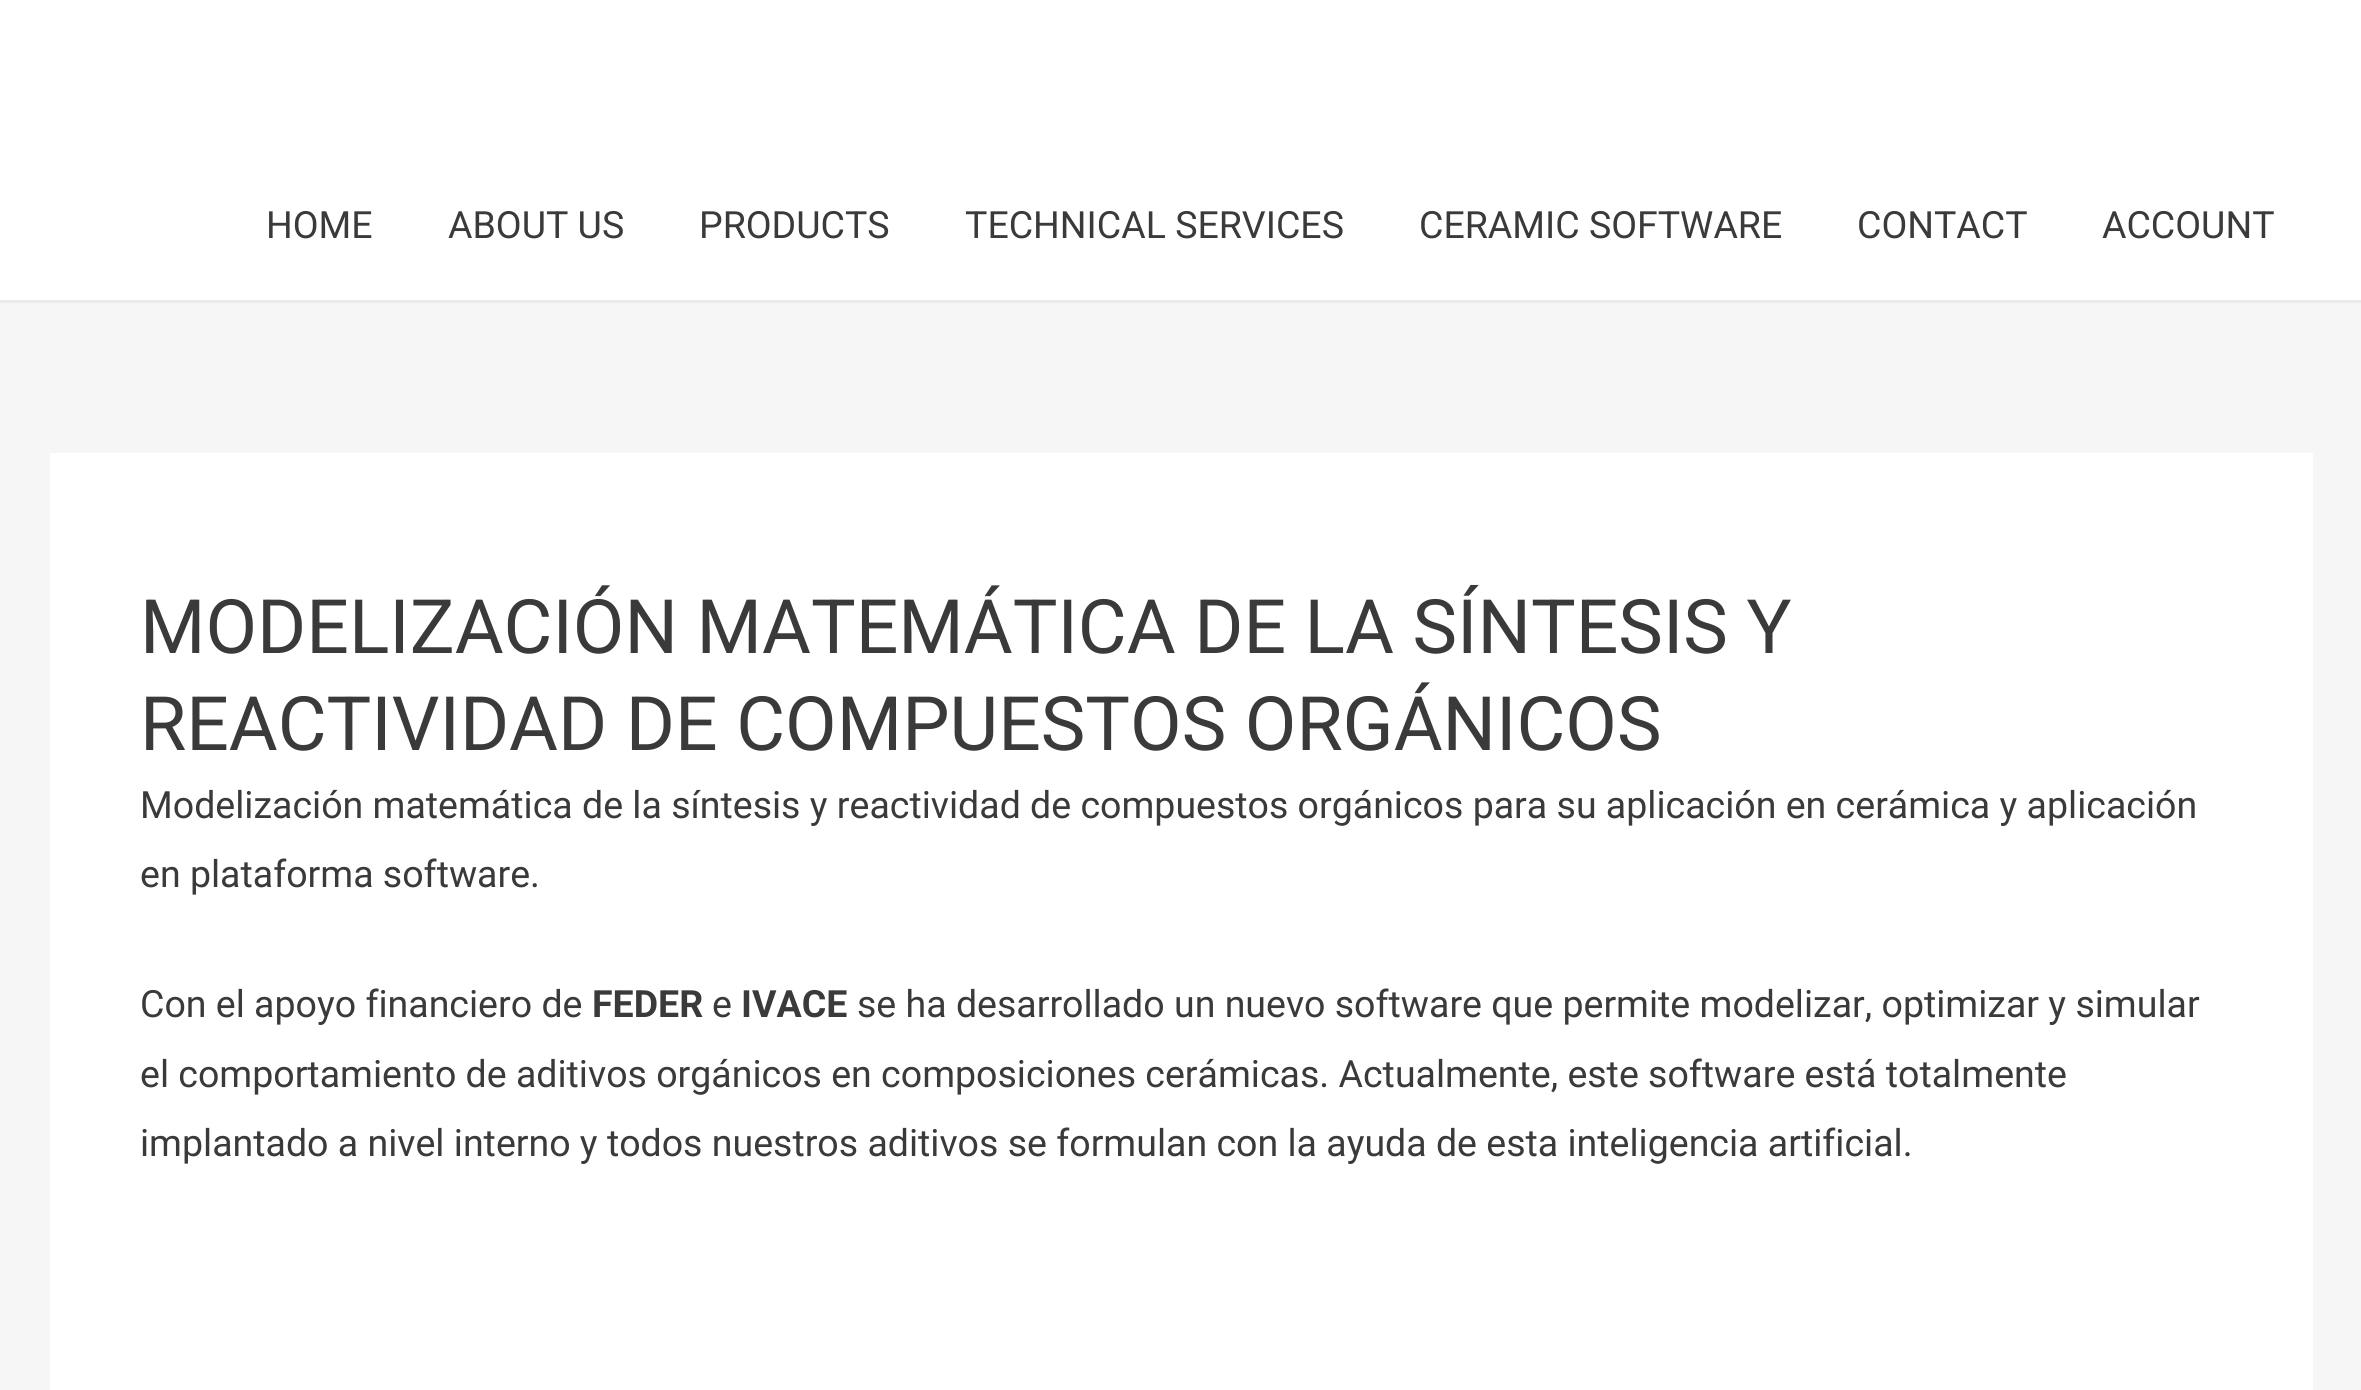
import math
import cairo


def draw(ctx):
	ctx.set_source_rgb(0.961, 0.961, 0.961)
	ctx.paint()
	ctx.set_source_rgb(1, 1, 1)
	ctx.rectangle(0, 0, 2361, 300)
	ctx.fill()
	ctx.set_source_rgb(0.918, 0.918, 0.918)
	ctx.rectangle(0, 300, 2361, 3)
	ctx.fill()
	ctx.select_font_face('Roboto')
	ctx.set_font_size(37.5)
	ctx.set_source_rgb(0.227, 0.227, 0.227)
	for x, y, s in [
		(266, 238, 'HOME'),
		(448, 238, 'ABOUT US'),
		(699, 238, 'PRODUCTS'),
		(965, 238, 'TECHNICAL SERVICES'),
		(1419, 238, 'CERAMIC SOFTWARE'),
		(1857, 238, 'CONTACT'),
		(2102, 238, 'ACCOUNT'),
	]:
		ctx.move_to(x, y)
		ctx.show_text(s)
	ctx.set_source_rgb(1, 1, 1)
	ctx.rectangle(50, 453, 2263, 937)
	ctx.fill()
	ctx.set_font_size(75)
	ctx.set_source_rgb(0.227, 0.227, 0.227)
	ctx.move_to(140, 653)
	ctx.show_text('MODELIZACIÓN MATEMÁTICA DE LA SÍNTESIS Y')
	ctx.move_to(140, 750)
	ctx.show_text('REACTIVIDAD DE COMPUESTOS ORGÁNICOS')
	ctx.set_font_size(37.5)
	for x, y, s in [
		(140, 818, 'Modelización matemática de la síntesis y reactividad de compuestos orgánicos para su aplicación en cerámica y aplicación'),
		(140, 887, 'en plataforma software.'),
		(140, 1017, 'Con el apoyo financiero de'),
	]:
		ctx.move_to(x, y)
		ctx.show_text(s)
	ctx.select_font_face('Roboto', cairo.FONT_SLANT_NORMAL, cairo.FONT_WEIGHT_BOLD)
	ctx.move_to(592, 1017)
	ctx.show_text('FEDER')
	ctx.select_font_face('Roboto')
	ctx.move_to(712, 1017)
	ctx.show_text('e')
	ctx.select_font_face('Roboto', cairo.FONT_SLANT_NORMAL, cairo.FONT_WEIGHT_BOLD)
	ctx.move_to(741, 1017)
	ctx.show_text('IVACE')
	ctx.select_font_face('Roboto')
	for x, y, s in [
		(857, 1017, 'se ha desarrollado un nuevo software que permite modelizar, optimizar y simular'),
		(140, 1087, 'el comportamiento de aditivos orgánicos en composiciones cerámicas. Actualmente, este software está totalmente'),
		(140, 1156, 'implantado a nivel interno y todos nuestros aditivos se formulan con la ayuda de esta inteligencia artificial.'),
	]:
		ctx.move_to(x, y)
		ctx.show_text(s)


surface = cairo.ImageSurface(cairo.FORMAT_RGB24, 2361, 1390)
ctx = cairo.Context(surface)
options = cairo.FontOptions()
options.set_hint_metrics(cairo.HINT_METRICS_OFF)
options.set_hint_style(cairo.HINT_STYLE_NONE)
ctx.set_font_options(options)
ctx.set_miter_limit(4)
draw(ctx)
surface.write_to_png('image.png')
